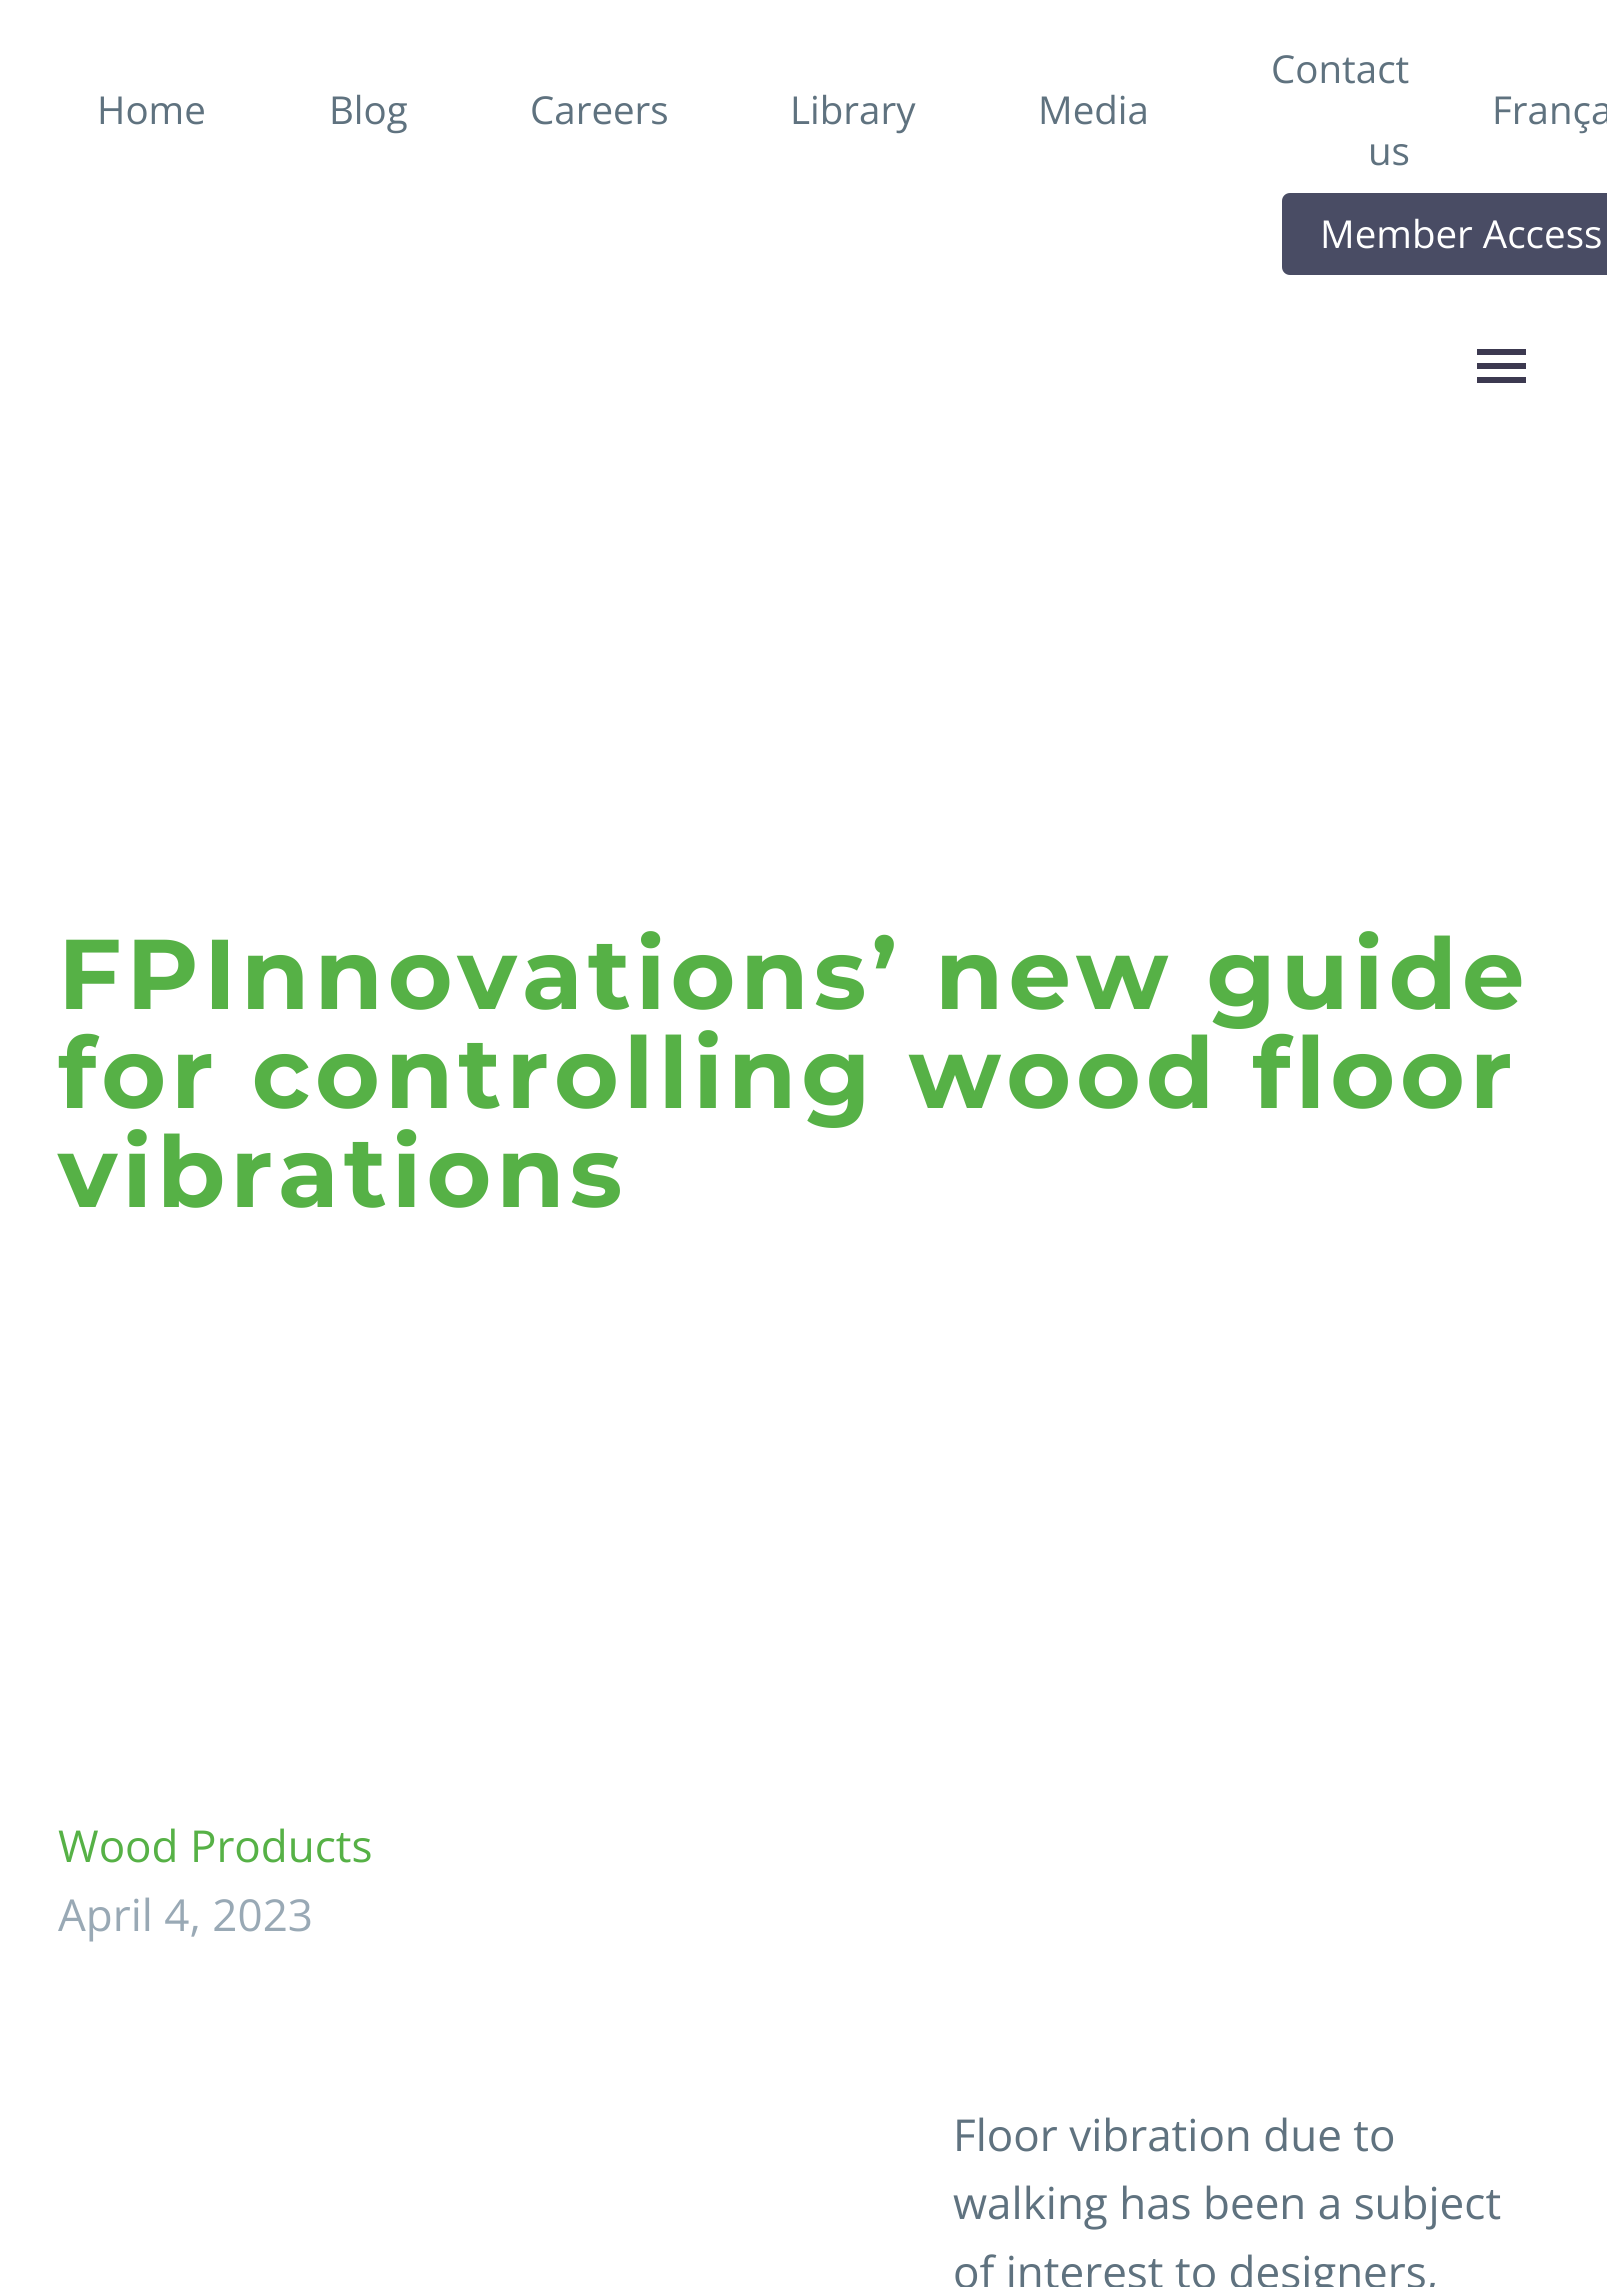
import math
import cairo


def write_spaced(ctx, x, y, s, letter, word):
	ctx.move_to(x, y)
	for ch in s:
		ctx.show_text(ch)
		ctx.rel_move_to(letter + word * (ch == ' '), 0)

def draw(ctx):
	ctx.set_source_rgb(1, 1, 1)
	ctx.paint()
	ctx.select_font_face('Open Sans')
	ctx.set_font_size(38.5)
	ctx.set_source_rgb(0.373, 0.447, 0.498)
	for x, y, s in [
		(97, 124, 'Home'),
		(329, 124, 'Blog'),
		(530, 124, 'Careers'),
		(790, 124, 'Library'),
		(1038, 124, 'Media'),
		(1271, 83, 'Contact'),
		(1368, 165, 'us'),
		(1492, 124, 'França'),
	]:
		ctx.move_to(x, y)
		ctx.show_text(s)
	ctx.set_source_rgb(0.286, 0.298, 0.392)
	ctx.new_path()
	ctx.move_to(1290, 193)
	ctx.line_to(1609, 193)
	ctx.line_to(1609, 275)
	ctx.line_to(1290, 275)
	ctx.curve_to(1285.5, 275, 1282, 271.5, 1282, 267)
	ctx.line_to(1282, 201)
	ctx.curve_to(1282, 196.5, 1285.5, 193, 1290, 193)
	ctx.close_path()
	ctx.fill()
	ctx.set_source_rgb(1, 1, 1)
	ctx.move_to(1320, 248)
	ctx.show_text('Member Access')
	ctx.set_source_rgb(0.235, 0.224, 0.314)
	ctx.rectangle(1477, 349, 49, 6)
	ctx.rectangle(1477, 363, 49, 6)
	ctx.rectangle(1477, 377, 49, 6)
	ctx.fill()
	ctx.select_font_face('Montserrat', cairo.FONT_SLANT_NORMAL, cairo.FONT_WEIGHT_BOLD)
	ctx.set_font_size(99)
	ctx.set_source_rgb(0.337, 0.694, 0.275)
	for x, y, s in [
		(58, 1009, 'FPInnovations’ new guide'),
		(58, 1108, 'for controlling wood floor'),
		(58, 1207, 'vibrations'),
	]:
		write_spaced(ctx, x, y, s, 4.95, 0)
	ctx.select_font_face('Open Sans')
	ctx.set_font_size(44)
	ctx.move_to(58, 1862)
	ctx.show_text('Wood Products')
	ctx.set_source_rgb(0.6, 0.663, 0.71)
	ctx.move_to(58, 1931)
	ctx.show_text('April 4, 2023')
	ctx.set_source_rgb(0.373, 0.447, 0.498)
	for x, y, s in [
		(953, 2151, 'Floor vibration due to'),
		(953, 2219, 'walking has been a subject'),
		(953, 2288, 'of interest to designers,'),
	]:
		ctx.move_to(x, y)
		ctx.show_text(s)


surface = cairo.ImageSurface(cairo.FORMAT_RGB24, 1607, 2287)
ctx = cairo.Context(surface)
options = cairo.FontOptions()
options.set_hint_metrics(cairo.HINT_METRICS_OFF)
options.set_hint_style(cairo.HINT_STYLE_NONE)
ctx.set_font_options(options)
ctx.set_miter_limit(4)
draw(ctx)
surface.write_to_png('image.png')
